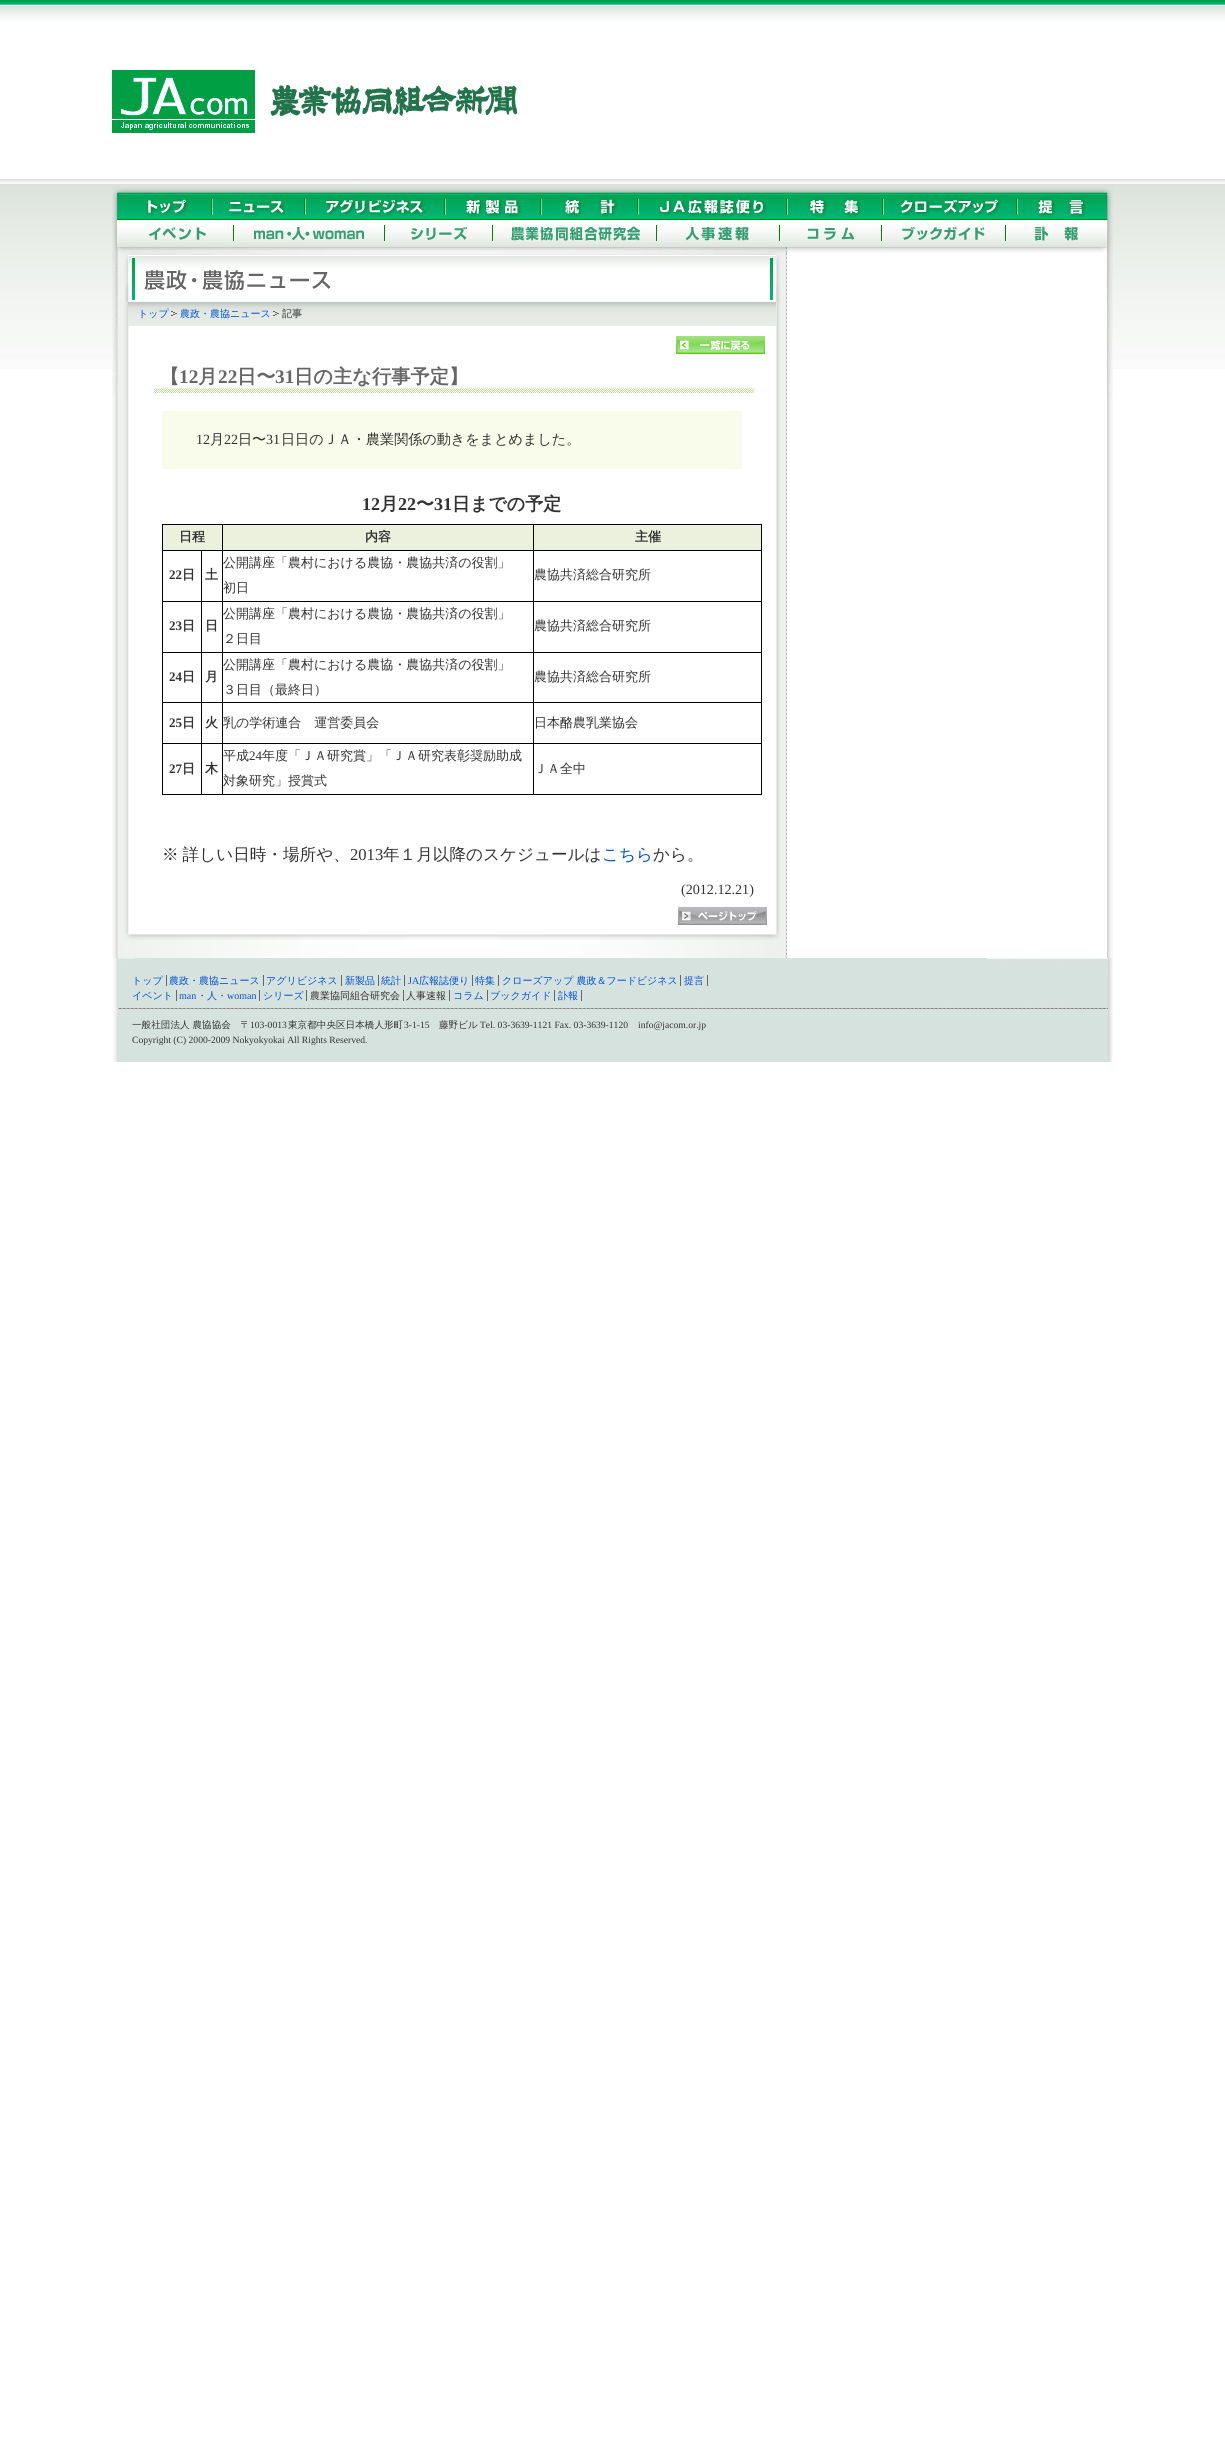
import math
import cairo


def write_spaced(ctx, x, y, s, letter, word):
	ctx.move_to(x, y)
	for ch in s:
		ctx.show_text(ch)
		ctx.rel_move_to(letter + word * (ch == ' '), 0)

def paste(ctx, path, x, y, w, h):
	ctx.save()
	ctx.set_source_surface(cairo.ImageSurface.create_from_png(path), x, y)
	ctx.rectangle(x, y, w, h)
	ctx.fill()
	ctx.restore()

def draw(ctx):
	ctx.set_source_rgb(1, 1, 1)
	ctx.paint()
	paste(ctx, 'media/1.png', 0, 0, 1225, 369)
	paste(ctx, 'media/2.png', 112, 253, 1001, 809)
	paste(ctx, 'media/3.png', 112, 0, 1001, 180)
	paste(ctx, 'media/4.png', 112, 70, 405, 63)
	paste(ctx, 'media/5.png', 112, 180, 1001, 73)
	paste(ctx, 'media/6.png', 112, 253, 9, 144)
	paste(ctx, 'media/7.png', 124, 253, 656, 679)
	paste(ctx, 'media/8.png', 125, 253, 655, 49)
	paste(ctx, 'media/9.png', 128, 302, 648, 24)
	ctx.select_font_face('WenQuanYi Zen Hei Medium')
	ctx.set_font_size(10)
	ctx.set_source_rgb(0, 0.314, 0.827)
	ctx.move_to(138, 317)
	ctx.show_text('トップ')
	paste(ctx, 'media/10.png', 171, 311, 6, 6)
	ctx.move_to(180, 317)
	ctx.show_text('農政・農協ニュース')
	paste(ctx, 'media/10.png', 273, 311, 6, 6)
	ctx.select_font_face('WenQuanYi Zen Hei', cairo.FONT_SLANT_NORMAL, cairo.FONT_WEIGHT_BOLD)
	ctx.set_source_rgb(0.4, 0.4, 0.4)
	ctx.move_to(282, 317)
	ctx.show_text('記事')
	paste(ctx, 'media/11.png', 676, 336, 89, 18)
	paste(ctx, 'media/12.png', 154, 388, 600, 6)
	ctx.set_font_size(19.25)
	ctx.move_to(160, 383)
	ctx.show_text('【')
	ctx.select_font_face('Liberation Serif', cairo.FONT_SLANT_NORMAL, cairo.FONT_WEIGHT_BOLD)
	ctx.move_to(179, 383)
	ctx.show_text('12')
	ctx.select_font_face('WenQuanYi Zen Hei', cairo.FONT_SLANT_NORMAL, cairo.FONT_WEIGHT_BOLD)
	ctx.move_to(198, 383)
	ctx.show_text('月')
	ctx.select_font_face('Liberation Serif', cairo.FONT_SLANT_NORMAL, cairo.FONT_WEIGHT_BOLD)
	ctx.move_to(218, 383)
	ctx.show_text('22')
	ctx.select_font_face('WenQuanYi Zen Hei', cairo.FONT_SLANT_NORMAL, cairo.FONT_WEIGHT_BOLD)
	ctx.move_to(237, 383)
	ctx.show_text('日〜')
	ctx.select_font_face('Liberation Serif', cairo.FONT_SLANT_NORMAL, cairo.FONT_WEIGHT_BOLD)
	ctx.move_to(275, 383)
	ctx.show_text('31')
	ctx.select_font_face('WenQuanYi Zen Hei', cairo.FONT_SLANT_NORMAL, cairo.FONT_WEIGHT_BOLD)
	ctx.move_to(294, 383)
	ctx.show_text('日の主な行事予定】')
	ctx.set_source_rgb(0.973, 0.984, 0.918)
	ctx.rectangle(162, 411, 580, 58)
	ctx.fill()
	ctx.select_font_face('Liberation Serif')
	ctx.set_font_size(14.1)
	ctx.set_source_rgb(0.2, 0.2, 0.2)
	ctx.move_to(196, 444)
	ctx.show_text('12')
	ctx.select_font_face('WenQuanYi Zen Hei Medium')
	ctx.move_to(210, 444)
	ctx.show_text('月')
	ctx.select_font_face('Liberation Serif')
	ctx.move_to(224, 444)
	ctx.show_text('22')
	ctx.select_font_face('WenQuanYi Zen Hei Medium')
	ctx.move_to(238, 444)
	ctx.show_text('日〜')
	ctx.select_font_face('Liberation Serif')
	ctx.move_to(266, 444)
	ctx.show_text('31')
	ctx.select_font_face('WenQuanYi Zen Hei Medium')
	ctx.move_to(281, 444)
	ctx.show_text('日日のＪＡ・農業関係の動きをまとめました。')
	ctx.select_font_face('Liberation Serif', cairo.FONT_SLANT_NORMAL, cairo.FONT_WEIGHT_BOLD)
	ctx.set_font_size(18)
	ctx.move_to(362, 510)
	ctx.show_text('12')
	ctx.select_font_face('WenQuanYi Zen Hei', cairo.FONT_SLANT_NORMAL, cairo.FONT_WEIGHT_BOLD)
	ctx.move_to(380, 510)
	ctx.show_text('月')
	ctx.select_font_face('Liberation Serif', cairo.FONT_SLANT_NORMAL, cairo.FONT_WEIGHT_BOLD)
	ctx.move_to(398, 510)
	ctx.show_text('22')
	ctx.select_font_face('WenQuanYi Zen Hei', cairo.FONT_SLANT_NORMAL, cairo.FONT_WEIGHT_BOLD)
	ctx.move_to(416, 510)
	ctx.show_text('〜')
	ctx.select_font_face('Liberation Serif', cairo.FONT_SLANT_NORMAL, cairo.FONT_WEIGHT_BOLD)
	ctx.move_to(434, 510)
	ctx.show_text('31')
	ctx.select_font_face('WenQuanYi Zen Hei', cairo.FONT_SLANT_NORMAL, cairo.FONT_WEIGHT_BOLD)
	ctx.move_to(452, 510)
	ctx.show_text('日までの予定')
	ctx.set_source_rgb(0.918, 0.945, 0.867)
	ctx.rectangle(163, 525, 59, 25)
	ctx.fill()
	ctx.set_source_rgb(0, 0, 0)
	ctx.rectangle(162, 524, 600, 1)
	ctx.rectangle(761, 550, 1, 245)
	ctx.rectangle(761, 524, 1, 27)
	ctx.rectangle(222, 702, 312, 1)
	ctx.rectangle(533, 794, 229, 1)
	ctx.rectangle(533, 743, 1, 52)
	ctx.rectangle(533, 743, 229, 1)
	ctx.rectangle(533, 702, 1, 42)
	ctx.rectangle(533, 702, 229, 1)
	ctx.rectangle(533, 652, 1, 51)
	ctx.rectangle(533, 652, 229, 1)
	ctx.rectangle(533, 601, 1, 52)
	ctx.rectangle(533, 601, 229, 1)
	ctx.rectangle(533, 550, 1, 52)
	ctx.rectangle(533, 550, 229, 1)
	ctx.rectangle(533, 524, 1, 27)
	ctx.rectangle(222, 794, 312, 1)
	ctx.rectangle(222, 743, 1, 52)
	ctx.rectangle(222, 743, 312, 1)
	ctx.rectangle(222, 652, 1, 92)
	ctx.rectangle(222, 652, 312, 1)
	ctx.rectangle(222, 601, 1, 52)
	ctx.rectangle(222, 601, 312, 1)
	ctx.rectangle(222, 550, 1, 52)
	ctx.rectangle(222, 550, 312, 1)
	ctx.rectangle(222, 524, 1, 27)
	ctx.rectangle(201, 794, 22, 1)
	ctx.rectangle(201, 743, 1, 52)
	ctx.rectangle(201, 743, 22, 1)
	ctx.rectangle(201, 702, 1, 42)
	ctx.rectangle(201, 702, 22, 1)
	ctx.rectangle(201, 652, 1, 51)
	ctx.rectangle(201, 652, 22, 1)
	ctx.rectangle(201, 601, 1, 52)
	ctx.rectangle(201, 601, 22, 1)
	ctx.rectangle(201, 550, 1, 52)
	ctx.rectangle(162, 794, 40, 1)
	ctx.rectangle(162, 743, 1, 52)
	ctx.rectangle(162, 743, 40, 1)
	ctx.rectangle(162, 702, 1, 42)
	ctx.rectangle(162, 702, 40, 1)
	ctx.rectangle(162, 652, 1, 51)
	ctx.rectangle(162, 652, 40, 1)
	ctx.rectangle(162, 601, 1, 52)
	ctx.rectangle(162, 601, 40, 1)
	ctx.rectangle(162, 550, 1, 52)
	ctx.rectangle(162, 550, 61, 1)
	ctx.rectangle(162, 524, 1, 27)
	ctx.fill()
	ctx.set_font_size(13)
	ctx.set_source_rgb(0.2, 0.2, 0.2)
	ctx.move_to(179, 541)
	ctx.show_text('日程')
	ctx.set_source_rgb(0.918, 0.945, 0.867)
	ctx.rectangle(223, 525, 310, 25)
	ctx.fill()
	ctx.set_source_rgb(0.2, 0.2, 0.2)
	ctx.move_to(365, 541)
	ctx.show_text('内容')
	ctx.set_source_rgb(0.918, 0.945, 0.867)
	ctx.rectangle(534, 525, 227, 25)
	ctx.fill()
	ctx.set_source_rgb(0.2, 0.2, 0.2)
	ctx.move_to(635, 541)
	ctx.show_text('主催')
	ctx.select_font_face('Liberation Serif', cairo.FONT_SLANT_NORMAL, cairo.FONT_WEIGHT_BOLD)
	ctx.move_to(169, 579)
	ctx.show_text('22')
	ctx.select_font_face('WenQuanYi Zen Hei', cairo.FONT_SLANT_NORMAL, cairo.FONT_WEIGHT_BOLD)
	ctx.move_to(182, 579)
	ctx.show_text('日')
	ctx.move_to(205, 579)
	ctx.show_text('土')
	ctx.select_font_face('WenQuanYi Zen Hei Medium')
	for x, y, s in [
		(223, 567, '公開講座「農村における農協・農協共済の役割」'),
		(223, 592, '初日'),
		(534, 579, '農協共済総合研究所'),
	]:
		ctx.move_to(x, y)
		ctx.show_text(s)
	ctx.select_font_face('Liberation Serif', cairo.FONT_SLANT_NORMAL, cairo.FONT_WEIGHT_BOLD)
	ctx.move_to(169, 630)
	ctx.show_text('23')
	ctx.select_font_face('WenQuanYi Zen Hei', cairo.FONT_SLANT_NORMAL, cairo.FONT_WEIGHT_BOLD)
	ctx.move_to(182, 630)
	ctx.show_text('日')
	ctx.move_to(205, 630)
	ctx.show_text('日')
	ctx.select_font_face('WenQuanYi Zen Hei Medium')
	for x, y, s in [
		(223, 618, '公開講座「農村における農協・農協共済の役割」'),
		(223, 643, '２日目'),
		(534, 630, '農協共済総合研究所'),
	]:
		ctx.move_to(x, y)
		ctx.show_text(s)
	ctx.select_font_face('Liberation Serif', cairo.FONT_SLANT_NORMAL, cairo.FONT_WEIGHT_BOLD)
	ctx.move_to(169, 681)
	ctx.show_text('24')
	ctx.select_font_face('WenQuanYi Zen Hei', cairo.FONT_SLANT_NORMAL, cairo.FONT_WEIGHT_BOLD)
	ctx.move_to(182, 681)
	ctx.show_text('日')
	ctx.move_to(205, 681)
	ctx.show_text('月')
	ctx.select_font_face('WenQuanYi Zen Hei Medium')
	for x, y, s in [
		(223, 669, '公開講座「農村における農協・農協共済の役割」'),
		(223, 694, '３日目（最終日）'),
		(534, 681, '農協共済総合研究所'),
	]:
		ctx.move_to(x, y)
		ctx.show_text(s)
	ctx.select_font_face('Liberation Serif', cairo.FONT_SLANT_NORMAL, cairo.FONT_WEIGHT_BOLD)
	ctx.move_to(169, 727)
	ctx.show_text('25')
	ctx.select_font_face('WenQuanYi Zen Hei', cairo.FONT_SLANT_NORMAL, cairo.FONT_WEIGHT_BOLD)
	ctx.move_to(182, 727)
	ctx.show_text('日')
	ctx.move_to(205, 727)
	ctx.show_text('火')
	ctx.select_font_face('WenQuanYi Zen Hei Medium')
	ctx.move_to(223, 727)
	ctx.show_text('乳の学術連合　運営委員会')
	ctx.move_to(534, 727)
	ctx.show_text('日本酪農乳業協会')
	ctx.select_font_face('Liberation Serif', cairo.FONT_SLANT_NORMAL, cairo.FONT_WEIGHT_BOLD)
	ctx.move_to(169, 773)
	ctx.show_text('27')
	ctx.select_font_face('WenQuanYi Zen Hei', cairo.FONT_SLANT_NORMAL, cairo.FONT_WEIGHT_BOLD)
	ctx.move_to(182, 773)
	ctx.show_text('日')
	ctx.move_to(205, 773)
	ctx.show_text('木')
	ctx.select_font_face('WenQuanYi Zen Hei Medium')
	ctx.move_to(223, 760)
	ctx.show_text('平成')
	ctx.select_font_face('Liberation Serif')
	ctx.move_to(249, 760)
	ctx.show_text('24')
	ctx.select_font_face('WenQuanYi Zen Hei Medium')
	for x, y, s in [
		(262, 760, '年度「ＪＡ研究賞」「ＪＡ研究表彰奨励助成'),
		(223, 785, '対象研究」授賞式'),
		(534, 773, 'ＪＡ全中'),
	]:
		ctx.move_to(x, y)
		ctx.show_text(s)
	ctx.set_font_size(16.6)
	write_spaced(ctx, 162, 860, '※ 詳しい日時・場所や、', 0, -1)
	ctx.select_font_face('Liberation Serif')
	ctx.move_to(350, 860)
	ctx.show_text('2013')
	ctx.select_font_face('WenQuanYi Zen Hei Medium')
	ctx.move_to(383, 860)
	ctx.show_text('年１月以降のスケジュールは')
	ctx.set_source_rgb(0, 0.314, 0.827)
	ctx.move_to(602, 860)
	ctx.show_text('こちら')
	ctx.set_source_rgb(0.2, 0.2, 0.2)
	ctx.move_to(653, 860)
	ctx.show_text('から。')
	ctx.select_font_face('Liberation Serif')
	ctx.set_font_size(14.1)
	ctx.move_to(681, 894)
	ctx.show_text('(2012.12.21)')
	paste(ctx, 'media/13.png', 124, 932, 656, 8)
	paste(ctx, 'media/14.png', 678, 907, 89, 18)
	paste(ctx, 'media/15.png', 1102, 253, 11, 144)
	paste(ctx, 'media/16.png', 112, 958, 1000, 104)
	ctx.select_font_face('WenQuanYi Zen Hei Medium')
	ctx.set_font_size(10)
	ctx.set_source_rgb(0, 0.314, 0.827)
	ctx.move_to(132, 984)
	ctx.show_text('トップ')
	ctx.set_source_rgb(0.4, 0.396, 0.416)
	ctx.rectangle(166, 975, 1, 11)
	ctx.fill()
	ctx.set_source_rgb(0, 0.314, 0.827)
	ctx.move_to(169, 984)
	ctx.show_text('農政・農協ニュース')
	ctx.set_source_rgb(0.4, 0.396, 0.416)
	ctx.rectangle(263, 975, 1, 11)
	ctx.fill()
	ctx.set_source_rgb(0, 0.314, 0.827)
	ctx.move_to(266, 984)
	ctx.show_text('アグリビジネス')
	ctx.set_source_rgb(0.4, 0.396, 0.416)
	ctx.rectangle(341, 975, 1, 11)
	ctx.fill()
	ctx.set_source_rgb(0, 0.314, 0.827)
	ctx.move_to(345, 984)
	ctx.show_text('新製品')
	ctx.set_source_rgb(0.4, 0.396, 0.416)
	ctx.rectangle(378, 975, 1, 11)
	ctx.fill()
	ctx.set_source_rgb(0, 0.314, 0.827)
	ctx.move_to(381, 984)
	ctx.show_text('統計')
	ctx.set_source_rgb(0.4, 0.396, 0.416)
	ctx.rectangle(404, 975, 1, 11)
	ctx.fill()
	ctx.select_font_face('Liberation Serif')
	ctx.set_source_rgb(0, 0.314, 0.827)
	ctx.move_to(408, 984)
	ctx.show_text('JA')
	ctx.select_font_face('WenQuanYi Zen Hei Medium')
	ctx.move_to(419, 984)
	ctx.show_text('広報誌便り')
	ctx.set_source_rgb(0.4, 0.396, 0.416)
	ctx.rectangle(472, 975, 1, 11)
	ctx.fill()
	ctx.set_source_rgb(0, 0.314, 0.827)
	ctx.move_to(475, 984)
	ctx.show_text('特集')
	ctx.set_source_rgb(0.4, 0.396, 0.416)
	ctx.rectangle(498, 975, 1, 11)
	ctx.fill()
	ctx.set_source_rgb(0, 0.314, 0.827)
	ctx.move_to(502, 984)
	ctx.show_text('クローズアップ 農政＆フードビジネス')
	ctx.set_source_rgb(0.4, 0.396, 0.416)
	ctx.rectangle(680, 975, 1, 11)
	ctx.fill()
	ctx.set_source_rgb(0, 0.314, 0.827)
	ctx.move_to(684, 984)
	ctx.show_text('提言')
	ctx.set_source_rgb(0.4, 0.396, 0.416)
	ctx.rectangle(707, 975, 1, 11)
	ctx.fill()
	ctx.set_source_rgb(0, 0.314, 0.827)
	ctx.move_to(132, 999)
	ctx.show_text('イベント')
	ctx.set_source_rgb(0.4, 0.396, 0.416)
	ctx.rectangle(176, 990, 1, 11)
	ctx.fill()
	ctx.select_font_face('Liberation Serif')
	ctx.set_source_rgb(0, 0.314, 0.827)
	ctx.move_to(179, 999)
	ctx.show_text('man')
	ctx.select_font_face('WenQuanYi Zen Hei Medium')
	ctx.move_to(197, 999)
	ctx.show_text('・人・')
	ctx.select_font_face('Liberation Serif')
	ctx.move_to(227, 999)
	ctx.show_text('woman')
	ctx.set_source_rgb(0.4, 0.396, 0.416)
	ctx.rectangle(259, 990, 1, 11)
	ctx.fill()
	ctx.select_font_face('WenQuanYi Zen Hei Medium')
	ctx.set_source_rgb(0, 0.314, 0.827)
	ctx.move_to(263, 999)
	ctx.show_text('シリーズ')
	ctx.set_source_rgb(0.4, 0.396, 0.416)
	ctx.rectangle(306, 990, 1, 11)
	ctx.fill()
	ctx.set_source_rgb(0.2, 0.2, 0.2)
	ctx.move_to(310, 999)
	ctx.show_text('農業協同組合研究会')
	ctx.set_source_rgb(0.4, 0.396, 0.416)
	ctx.rectangle(403, 990, 1, 11)
	ctx.fill()
	ctx.set_source_rgb(0.2, 0.2, 0.2)
	ctx.move_to(406, 999)
	ctx.show_text('人事速報')
	ctx.set_source_rgb(0.4, 0.396, 0.416)
	ctx.rectangle(449, 990, 1, 11)
	ctx.fill()
	ctx.set_source_rgb(0, 0.314, 0.827)
	ctx.move_to(453, 999)
	ctx.show_text('コラム')
	ctx.set_source_rgb(0.4, 0.396, 0.416)
	ctx.rectangle(487, 990, 1, 11)
	ctx.fill()
	ctx.set_source_rgb(0, 0.314, 0.827)
	ctx.move_to(490, 999)
	ctx.show_text('ブックガイド')
	ctx.set_source_rgb(0.4, 0.396, 0.416)
	ctx.rectangle(554, 990, 1, 11)
	ctx.fill()
	ctx.set_source_rgb(0, 0.314, 0.827)
	ctx.move_to(558, 999)
	ctx.show_text('訃報')
	ctx.set_source_rgb(0.4, 0.396, 0.416)
	ctx.rectangle(581, 990, 1, 11)
	ctx.fill()
	ctx.set_font_size(9.6)
	ctx.set_source_rgb(0.2, 0.2, 0.2)
	ctx.move_to(132, 1028)
	ctx.show_text('一般社団法人 農協協会　〒')
	ctx.select_font_face('Liberation Serif')
	ctx.move_to(250, 1028)
	ctx.show_text('103-0013')
	ctx.select_font_face('WenQuanYi Zen Hei Medium')
	ctx.move_to(288, 1028)
	ctx.show_text('東京都中央区日本橋人形町')
	ctx.select_font_face('Liberation Serif')
	ctx.move_to(404, 1028)
	ctx.show_text('3-1-15')
	ctx.select_font_face('WenQuanYi Zen Hei Medium')
	ctx.move_to(439, 1028)
	ctx.show_text('藤野ビル')
	ctx.select_font_face('Liberation Serif')
	for x, y, s in [
		(480, 1028, 'Tel. 03-3639-1121 Fax. 03-3639-1120'),
		(638, 1028, 'info@jacom.or.jp'),
		(132, 1043, 'Copyright (C) 2000-2009 Nokyokyokai All Rights Reserved.'),
	]:
		ctx.move_to(x, y)
		ctx.show_text(s)


surface = cairo.ImageSurface(cairo.FORMAT_RGB24, 1225, 2455)
ctx = cairo.Context(surface)
options = cairo.FontOptions()
options.set_hint_metrics(cairo.HINT_METRICS_OFF)
options.set_hint_style(cairo.HINT_STYLE_NONE)
ctx.set_font_options(options)
ctx.set_miter_limit(4)
draw(ctx)
surface.write_to_png('image.png')
